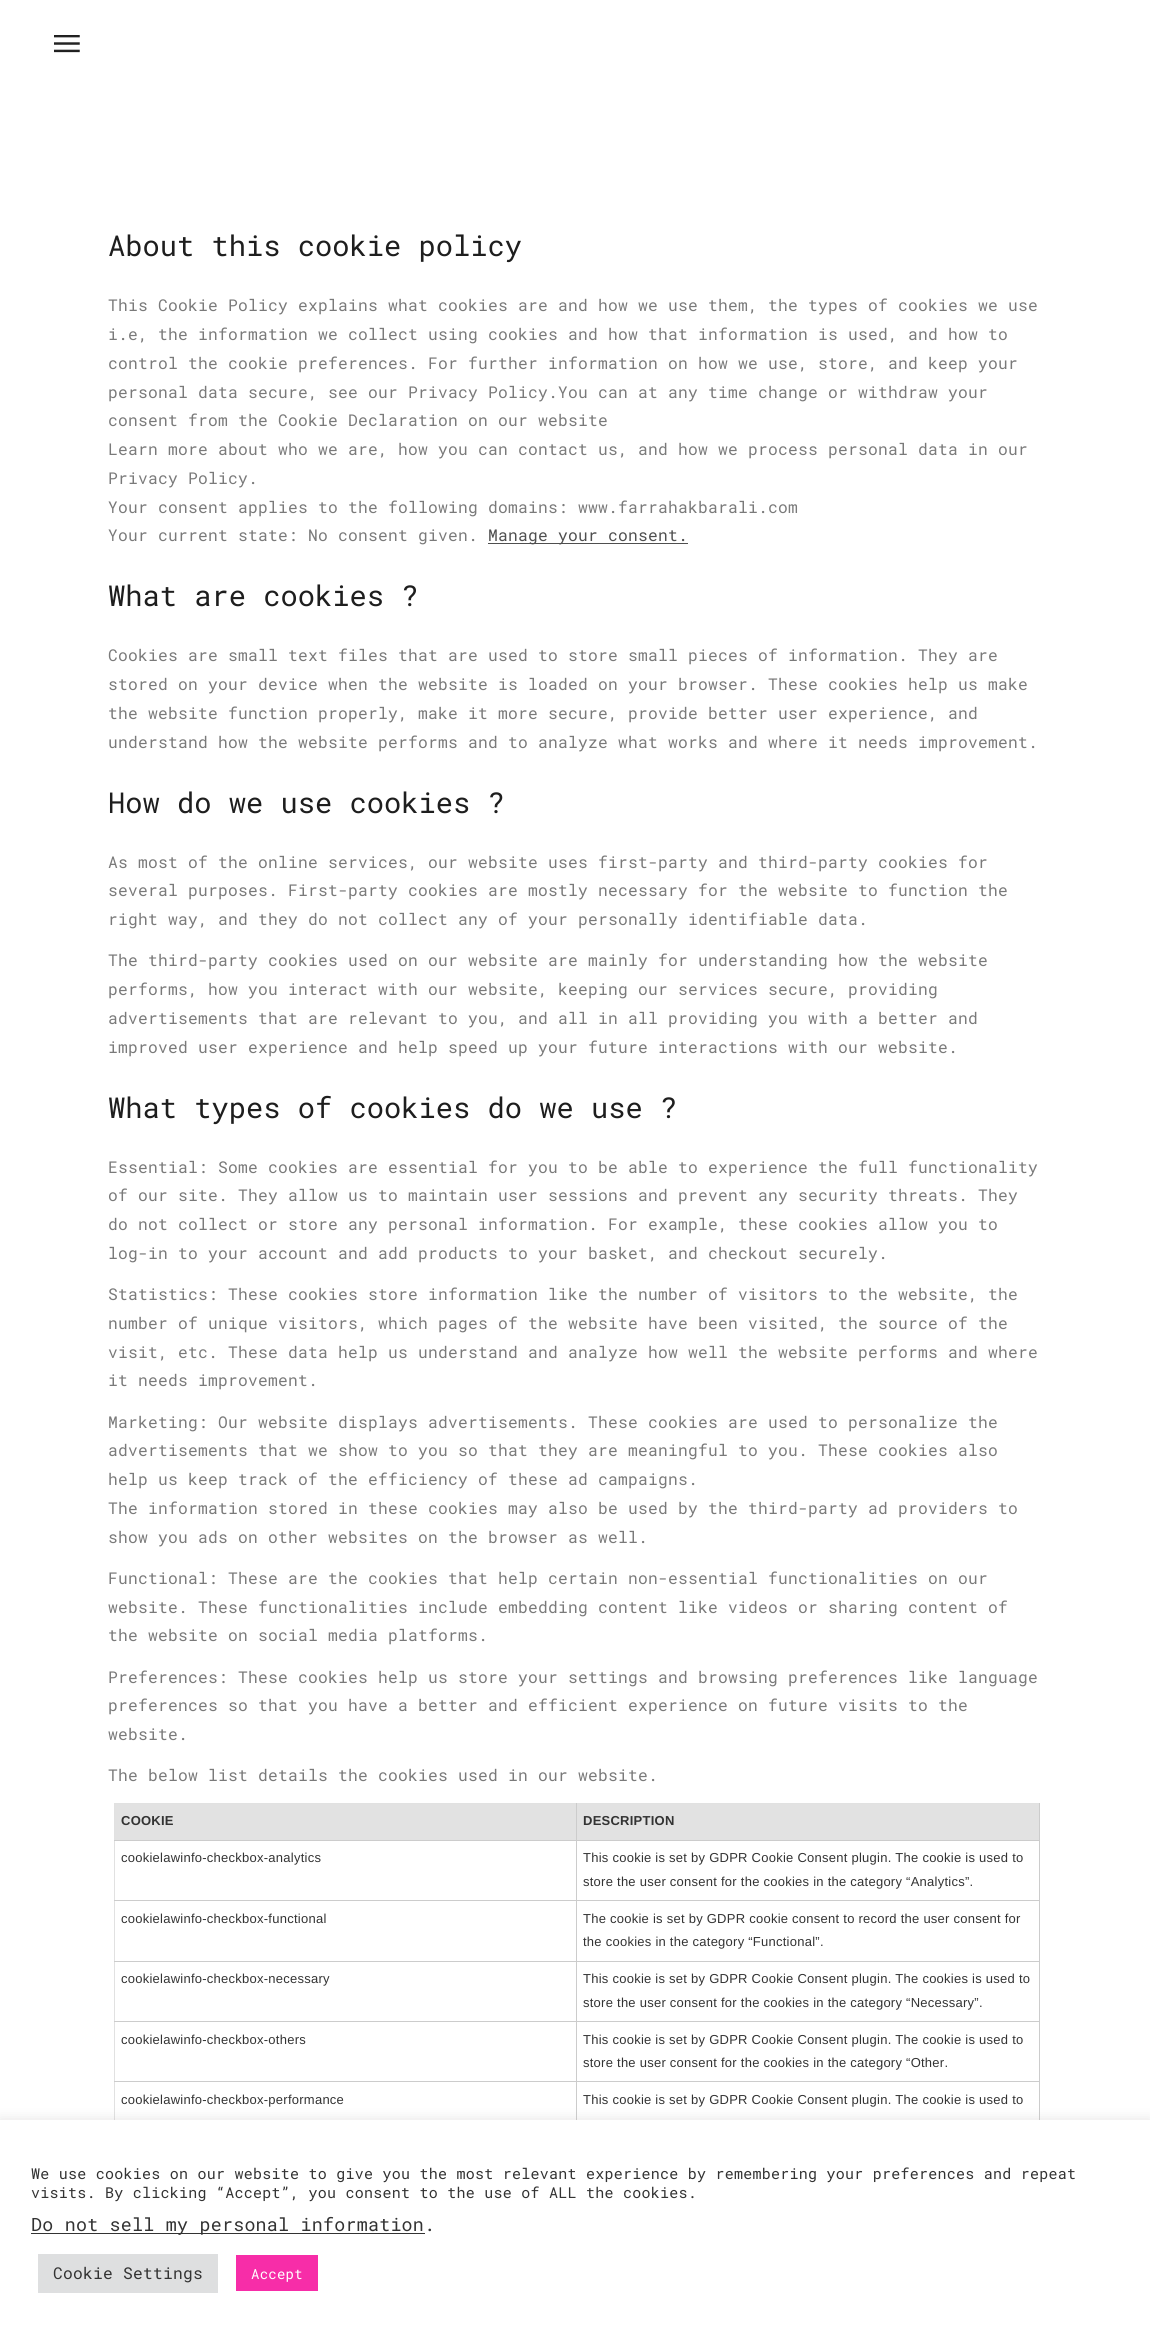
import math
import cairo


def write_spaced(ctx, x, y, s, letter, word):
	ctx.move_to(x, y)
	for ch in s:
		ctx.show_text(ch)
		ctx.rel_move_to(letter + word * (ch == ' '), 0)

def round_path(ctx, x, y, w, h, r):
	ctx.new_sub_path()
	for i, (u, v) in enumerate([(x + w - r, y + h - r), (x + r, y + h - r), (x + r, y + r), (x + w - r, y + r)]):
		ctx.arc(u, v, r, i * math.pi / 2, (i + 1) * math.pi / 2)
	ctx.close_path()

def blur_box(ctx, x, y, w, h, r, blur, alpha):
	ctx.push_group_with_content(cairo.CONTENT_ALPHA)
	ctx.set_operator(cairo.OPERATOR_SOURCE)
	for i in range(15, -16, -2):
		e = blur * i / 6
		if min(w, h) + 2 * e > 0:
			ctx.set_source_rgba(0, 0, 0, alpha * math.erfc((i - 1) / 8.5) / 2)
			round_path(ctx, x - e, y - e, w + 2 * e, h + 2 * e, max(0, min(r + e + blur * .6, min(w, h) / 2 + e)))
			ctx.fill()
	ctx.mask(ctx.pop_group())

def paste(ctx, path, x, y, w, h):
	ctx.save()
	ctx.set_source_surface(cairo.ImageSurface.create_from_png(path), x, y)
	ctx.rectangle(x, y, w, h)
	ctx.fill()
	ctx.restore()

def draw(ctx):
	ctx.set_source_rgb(1, 1, 1)
	ctx.paint()
	paste(ctx, 'media/1.png', 54, 35, 26, 18)
	ctx.select_font_face('Roboto Mono')
	ctx.set_font_size(28.75)
	ctx.set_source_rgb(0.118, 0.118, 0.118)
	ctx.move_to(108, 256)
	ctx.show_text('About this cookie policy')
	ctx.set_font_size(16.25)
	ctx.set_source_rgb(0.478, 0.478, 0.478)
	for x, y, s in [
		(108, 311, 'This Cookie Policy explains what cookies are and how we use them, the types of cookies we use'),
		(108, 340, 'i.e, the information we collect using cookies and how that information is used, and how to'),
		(108, 369, 'control the cookie preferences. For further information on how we use, store, and keep your'),
		(108, 398, 'personal data secure, see our Privacy Policy.You can at any time change or withdraw your'),
		(108, 426, 'consent from the Cookie Declaration on our website'),
		(108, 455, 'Learn more about who we are, how you can contact us, and how we process personal data in our'),
		(108, 484, 'Privacy Policy.'),
		(108, 513, 'Your consent applies to the following domains: www.farrahakbarali.com'),
		(108, 541, 'Your current state: No consent given.'),
	]:
		write_spaced(ctx, x, y, s, 0.25, 0)
	ctx.set_source_rgb(0.31, 0.31, 0.31)
	ctx.rectangle(488, 543, 200, 1)
	ctx.fill()
	write_spaced(ctx, 488, 541, 'Manage your consent.', 0.25, 0)
	ctx.set_font_size(28.75)
	ctx.set_source_rgb(0.118, 0.118, 0.118)
	ctx.move_to(108, 606)
	ctx.show_text('What are cookies ?')
	ctx.set_font_size(16.25)
	ctx.set_source_rgb(0.478, 0.478, 0.478)
	for x, y, s in [
		(108, 661, 'Cookies are small text files that are used to store small pieces of information. They are'),
		(108, 690, 'stored on your device when the website is loaded on your browser. These cookies help us make'),
		(108, 719, 'the website function properly, make it more secure, provide better user experience, and'),
		(108, 748, 'understand how the website performs and to analyze what works and where it needs improvement.'),
	]:
		write_spaced(ctx, x, y, s, 0.25, 0)
	ctx.set_font_size(28.75)
	ctx.set_source_rgb(0.118, 0.118, 0.118)
	ctx.move_to(108, 813)
	ctx.show_text('How do we use cookies ?')
	ctx.set_font_size(16.25)
	ctx.set_source_rgb(0.478, 0.478, 0.478)
	for x, y, s in [
		(108, 868, 'As most of the online services, our website uses first-party and third-party cookies for'),
		(108, 896, 'several purposes. First-party cookies are mostly necessary for the website to function the'),
		(108, 925, 'right way, and they do not collect any of your personally identifiable data.'),
		(108, 966, 'The third-party cookies used on our website are mainly for understanding how the website'),
		(108, 995, 'performs, how you interact with our website, keeping our services secure, providing'),
		(108, 1024, 'advertisements that are relevant to you, and all in all providing you with a better and'),
		(108, 1053, 'improved user experience and help speed up your future interactions with our website.'),
	]:
		write_spaced(ctx, x, y, s, 0.25, 0)
	ctx.set_font_size(28.75)
	ctx.set_source_rgb(0.118, 0.118, 0.118)
	ctx.move_to(108, 1118)
	ctx.show_text('What types of cookies do we use ?')
	ctx.set_font_size(16.25)
	ctx.set_source_rgb(0.478, 0.478, 0.478)
	for x, y, s in [
		(108, 1173, 'Essential: Some cookies are essential for you to be able to experience the full functionality'),
		(108, 1201, 'of our site. They allow us to maintain user sessions and prevent any security threats. They'),
		(108, 1230, 'do not collect or store any personal information. For example, these cookies allow you to'),
		(108, 1259, 'log-in to your account and add products to your basket, and checkout securely.'),
		(108, 1300, 'Statistics: These cookies store information like the number of visitors to the website, the'),
		(108, 1329, 'number of unique visitors, which pages of the website have been visited, the source of the'),
		(108, 1358, 'visit, etc. These data help us understand and analyze how well the website performs and where'),
		(108, 1386, 'it needs improvement.'),
		(108, 1428, 'Marketing: Our website displays advertisements. These cookies are used to personalize the'),
		(108, 1456, 'advertisements that we show to you so that they are meaningful to you. These cookies also'),
		(108, 1485, 'help us keep track of the efficiency of these ad campaigns.'),
		(108, 1514, 'The information stored in these cookies may also be used by the third-party ad providers to'),
		(108, 1543, 'show you ads on other websites on the browser as well.'),
		(108, 1584, 'Functional: These are the cookies that help certain non-essential functionalities on our'),
		(108, 1613, 'website. These functionalities include embedding content like videos or sharing content of'),
		(108, 1641, 'the website on social media platforms.'),
		(108, 1683, 'Preferences: These cookies help us store your settings and browsing preferences like language'),
		(108, 1711, 'preferences so that you have a better and efficient experience on future visits to the'),
		(108, 1740, 'website.'),
		(108, 1781, 'The below list details the cookies used in our website.'),
	]:
		write_spaced(ctx, x, y, s, 0.25, 0)
	ctx.set_source_rgb(0.882, 0.882, 0.882)
	ctx.rectangle(114, 1803, 926, 1)
	ctx.rectangle(114, 1840, 1, 280)
	ctx.rectangle(114, 1803, 1, 38)
	ctx.fill()
	ctx.set_source_rgb(0.886, 0.886, 0.886)
	ctx.rectangle(115, 1804, 461, 36)
	ctx.fill()
	ctx.set_source_rgb(0.8, 0.8, 0.8)
	ctx.rectangle(576, 2081, 1, 39)
	ctx.rectangle(1039, 1803, 1, 317)
	ctx.rectangle(576, 2081, 464, 1)
	ctx.rectangle(576, 2021, 1, 62)
	ctx.rectangle(576, 2021, 464, 1)
	ctx.rectangle(576, 1961, 1, 62)
	ctx.rectangle(576, 1961, 464, 1)
	ctx.rectangle(576, 1900, 1, 63)
	ctx.rectangle(576, 1900, 464, 1)
	ctx.rectangle(576, 1840, 1, 61)
	ctx.rectangle(576, 1840, 464, 1)
	ctx.rectangle(576, 1803, 1, 38)
	ctx.rectangle(114, 1840, 464, 1)
	ctx.fill()
	ctx.select_font_face('Liberation Sans', cairo.FONT_SLANT_NORMAL, cairo.FONT_WEIGHT_BOLD)
	ctx.set_font_size(13)
	ctx.set_source_rgb(0.2, 0.2, 0.2)
	write_spaced(ctx, 121, 1825, 'COOKIE', 0.25, 0)
	ctx.set_source_rgb(0.886, 0.886, 0.886)
	ctx.rectangle(577, 1804, 462, 36)
	ctx.fill()
	ctx.set_source_rgb(0.2, 0.2, 0.2)
	write_spaced(ctx, 583, 1825, 'DESCRIPTION', 0.25, 0)
	ctx.set_source_rgb(0.8, 0.8, 0.8)
	ctx.rectangle(114, 1900, 464, 1)
	ctx.fill()
	ctx.select_font_face('Liberation Sans')
	ctx.set_source_rgb(0.2, 0.2, 0.2)
	for x, y, s in [
		(121, 1862, 'cookielawinfo-checkbox-analytics'),
		(583, 1862, 'This cookie is set by GDPR Cookie Consent plugin. The cookie is used to'),
		(583, 1886, 'store the user consent for the cookies in the category “Analytics”.'),
	]:
		write_spaced(ctx, x, y, s, 0.25, 0)
	ctx.set_source_rgb(0.8, 0.8, 0.8)
	ctx.rectangle(114, 1961, 464, 1)
	ctx.fill()
	ctx.set_source_rgb(0.2, 0.2, 0.2)
	for x, y, s in [
		(121, 1923, 'cookielawinfo-checkbox-functional'),
		(583, 1923, 'The cookie is set by GDPR cookie consent to record the user consent for'),
		(583, 1946, 'the cookies in the category “Functional”.'),
	]:
		write_spaced(ctx, x, y, s, 0.25, 0)
	ctx.set_source_rgb(0.8, 0.8, 0.8)
	ctx.rectangle(114, 2021, 464, 1)
	ctx.fill()
	ctx.set_source_rgb(0.2, 0.2, 0.2)
	for x, y, s in [
		(121, 1983, 'cookielawinfo-checkbox-necessary'),
		(583, 1983, 'This cookie is set by GDPR Cookie Consent plugin. The cookies is used to'),
		(583, 2007, 'store the user consent for the cookies in the category “Necessary”.'),
	]:
		write_spaced(ctx, x, y, s, 0.25, 0)
	ctx.set_source_rgb(0.8, 0.8, 0.8)
	ctx.rectangle(114, 2081, 464, 1)
	ctx.fill()
	ctx.set_source_rgb(0.2, 0.2, 0.2)
	for x, y, s in [
		(121, 2044, 'cookielawinfo-checkbox-others'),
		(583, 2044, 'This cookie is set by GDPR Cookie Consent plugin. The cookie is used to'),
		(583, 2067, 'store the user consent for the cookies in the category “Other.'),
		(121, 2104, 'cookielawinfo-checkbox-performance'),
		(583, 2104, 'This cookie is set by GDPR Cookie Consent plugin. The cookie is used to'),
	]:
		write_spaced(ctx, x, y, s, 0.25, 0)
	ctx.set_source_rgb(0.675, 0.671, 0.671)
	blur_box(ctx, 0, 2119, 1150, 209, 0, 6, 0.3)
	ctx.set_source_rgb(1, 1, 1)
	ctx.rectangle(0, 2120, 1150, 208)
	ctx.fill()
	ctx.select_font_face('Roboto Mono')
	ctx.set_font_size(15)
	ctx.set_source_rgb(0.2, 0.2, 0.2)
	write_spaced(ctx, 31, 2179, 'We use cookies on our website to give you the most relevant experience by remembering your preferences and repeat', 0.25, 0)
	write_spaced(ctx, 31, 2198, 'visits. By clicking “Accept”, you consent to the use of ALL the cookies.', 0.25, 0)
	ctx.rectangle(31, 2233, 394, 1)
	ctx.fill()
	ctx.set_font_size(18.3)
	write_spaced(ctx, 31, 2231, 'Do not sell my personal information.', 0.25, 0)
	ctx.set_source_rgb(0.871, 0.875, 0.878)
	ctx.rectangle(38, 2254, 180, 39)
	ctx.fill()
	ctx.set_font_size(16.25)
	ctx.set_source_rgb(0.2, 0.2, 0.2)
	write_spaced(ctx, 53, 2279, 'Cookie Settings', 0.25, 0)
	ctx.set_source_rgb(0.965, 0.176, 0.659)
	ctx.rectangle(236, 2255, 82, 36)
	ctx.fill()
	ctx.set_font_size(14)
	ctx.set_source_rgb(1, 1, 1)
	write_spaced(ctx, 251, 2279, 'Accept', 0.25, 0)


surface = cairo.ImageSurface(cairo.FORMAT_RGB24, 1150, 2328)
ctx = cairo.Context(surface)
options = cairo.FontOptions()
options.set_hint_metrics(cairo.HINT_METRICS_OFF)
options.set_hint_style(cairo.HINT_STYLE_NONE)
ctx.set_font_options(options)
ctx.set_miter_limit(4)
draw(ctx)
surface.write_to_png('image.png')
